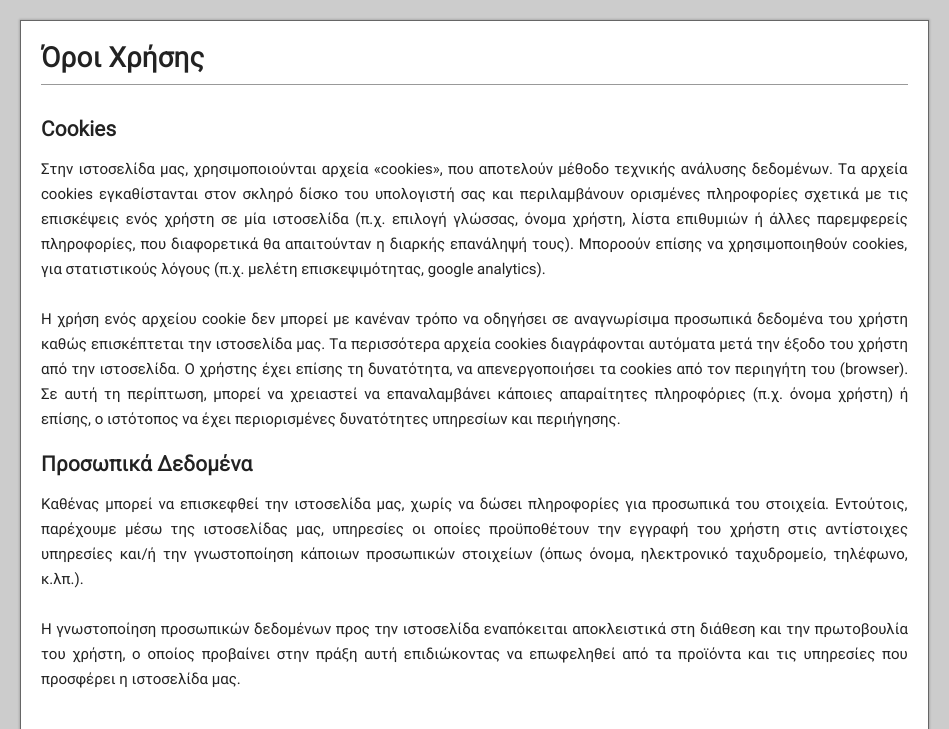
import math
import cairo


def write_spaced(ctx, x, y, s, letter, word):
	ctx.move_to(x, y)
	for ch in s:
		ctx.show_text(ch)
		ctx.rel_move_to(letter + word * (ch == ' '), 0)

def round_path(ctx, x, y, w, h, r):
	ctx.new_sub_path()
	for i, (u, v) in enumerate([(x + w - r, y + h - r), (x + r, y + h - r), (x + r, y + r), (x + w - r, y + r)]):
		ctx.arc(u, v, r, i * math.pi / 2, (i + 1) * math.pi / 2)
	ctx.close_path()

def blur_box(ctx, x, y, w, h, r, blur, alpha):
	ctx.push_group_with_content(cairo.CONTENT_ALPHA)
	ctx.set_operator(cairo.OPERATOR_SOURCE)
	for i in range(15, -16, -2):
		e = blur * i / 6
		if min(w, h) + 2 * e > 0:
			ctx.set_source_rgba(0, 0, 0, alpha * math.erfc((i - 1) / 8.5) / 2)
			round_path(ctx, x - e, y - e, w + 2 * e, h + 2 * e, max(0, min(r + e + blur * .6, min(w, h) / 2 + e)))
			ctx.fill()
	ctx.mask(ctx.pop_group())

def draw(ctx):
	ctx.set_source_rgb(0.8, 0.8, 0.8)
	ctx.paint()
	ctx.set_source_rgb(0, 0, 0)
	blur_box(ctx, 20, 20, 909, 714, 0, 1.5, 0.3)
	ctx.set_source_rgb(1, 1, 1)
	ctx.rectangle(20.5, 20.5, 908, 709)
	ctx.fill_preserve()
	ctx.set_source_rgb(0.4, 0.4, 0.4)
	ctx.set_line_width(1)
	ctx.stroke()
	ctx.set_source_rgb(0.6, 0.6, 0.6)
	ctx.rectangle(41, 84, 867, 1)
	ctx.fill()
	ctx.select_font_face('Roboto', cairo.FONT_SLANT_NORMAL, cairo.FONT_WEIGHT_BOLD)
	ctx.set_font_size(28)
	ctx.set_source_rgb(0.133, 0.133, 0.133)
	ctx.move_to(41, 67)
	ctx.show_text('Όροι Χρήσης')
	ctx.set_font_size(21)
	ctx.move_to(41, 136)
	ctx.show_text('Cookies')
	ctx.select_font_face('Roboto')
	ctx.set_font_size(15)
	write_spaced(ctx, 41, 174, 'Στην ιστοσελίδα μας, χρησιμοποιούνται αρχεία «cookies», που αποτελούν μέθοδο τεχνικής ανάλυσης δεδομένων. Τα αρχεία', 0, 1.5)
	write_spaced(ctx, 41, 199, 'cookies εγκαθίστανται στον σκληρό δίσκο του υπολογιστή σας και περιλαμβάνουν ορισμένες πληροφορίες σχετικά με τις', 0, 2.4)
	write_spaced(ctx, 41, 224, 'επισκέψεις ενός χρήστη σε μία ιστοσελίδα (π.χ. επιλογή γλώσσας, όνομα χρήστη, λίστα επιθυμιών ή άλλες παρεμφερείς', 0, 2.75)
	write_spaced(ctx, 41, 249, 'πληροφορίες, που διαφορετικά θα απαιτούνταν η διαρκής επανάληψή τους). Μποροούν επίσης να χρησιμοποιηθούν cookies,', 0, 1.25)
	ctx.move_to(41, 274)
	ctx.show_text('για στατιστικούς λόγους (π.χ. μελέτη επισκεψιμότητας, google analytics).')
	write_spaced(ctx, 41, 324, 'Η χρήση ενός αρχείου cookie δεν μπορεί με κανέναν τρόπο να οδηγήσει σε αναγνωρίσιμα προσωπικά δεδομένα του χρήστη', 0, 1.5)
	write_spaced(ctx, 41, 349, 'καθώς επισκέπτεται την ιστοσελίδα μας. Τα περισσότερα αρχεία cookies διαγράφονται αυτόματα μετά την έξοδο του χρήστη', 0, 0.4)
	write_spaced(ctx, 41, 374, 'από την ιστοσελίδα. Ο χρήστης έχει επίσης τη δυνατότητα, να απενεργοποιήσει τα cookies από τον περιηγήτη του (browser).', 0, 0.75)
	write_spaced(ctx, 41, 399, 'Σε αυτή τη περίπτωση, μπορεί να χρειαστεί να επαναλαμβάνει κάποιες απαραίτητες πληροφόριες (π.χ. όνομα χρήστη) ή', 0, 3)
	ctx.move_to(41, 424)
	ctx.show_text('επίσης, ο ιστότοπος να έχει περιορισμένες δυνατότητες υπηρεσίων και περιήγησης.')
	ctx.select_font_face('Roboto', cairo.FONT_SLANT_NORMAL, cairo.FONT_WEIGHT_BOLD)
	ctx.set_font_size(21)
	ctx.move_to(41, 471)
	ctx.show_text('Προσωπικά Δεδομένα')
	ctx.select_font_face('Roboto')
	ctx.set_font_size(15)
	write_spaced(ctx, 41, 509, 'Kαθένας μπορεί να επισκεφθεί την ιστοσελίδα μας, χωρίς να δώσει πληροφορίες για προσωπικά του στοιχεία. Εντούτοις,', 0, 2.1)
	write_spaced(ctx, 41, 534, 'παρέχουμε μέσω της ιστοσελίδας μας, υπηρεσίες οι οποίες προϋποθέτουν την εγγραφή του χρήστη στις αντίστοιχες', 0, 4.5)
	write_spaced(ctx, 41, 559, 'υπηρεσίες και/ή την γνωστοποίηση κάποιων προσωπικών στοιχείων (όπως όνομα, ηλεκτρονικό ταχυδρομείο, τηλέφωνο,', 0, 3.25)
	ctx.move_to(41, 584)
	ctx.show_text('κ.λπ.).')
	write_spaced(ctx, 41, 634, 'Η γνωστοποίηση προσωπικών δεδομένων προς την ιστοσελίδα εναπόκειται αποκλειστικά στη διάθεση και την πρωτοβουλία', 0, 0.9)
	write_spaced(ctx, 41, 659, 'του χρήστη, ο οποίος προβαίνει στην πράξη αυτή επιδιώκοντας να επωφεληθεί από τα προϊόντα και τις υπηρεσίες που', 0, 3)
	ctx.move_to(41, 684)
	ctx.show_text('προσφέρει η ιστοσελίδα μας.')


surface = cairo.ImageSurface(cairo.FORMAT_RGB24, 949, 729)
ctx = cairo.Context(surface)
options = cairo.FontOptions()
options.set_hint_metrics(cairo.HINT_METRICS_OFF)
options.set_hint_style(cairo.HINT_STYLE_NONE)
ctx.set_font_options(options)
ctx.set_miter_limit(4)
draw(ctx)
surface.write_to_png('image.png')
